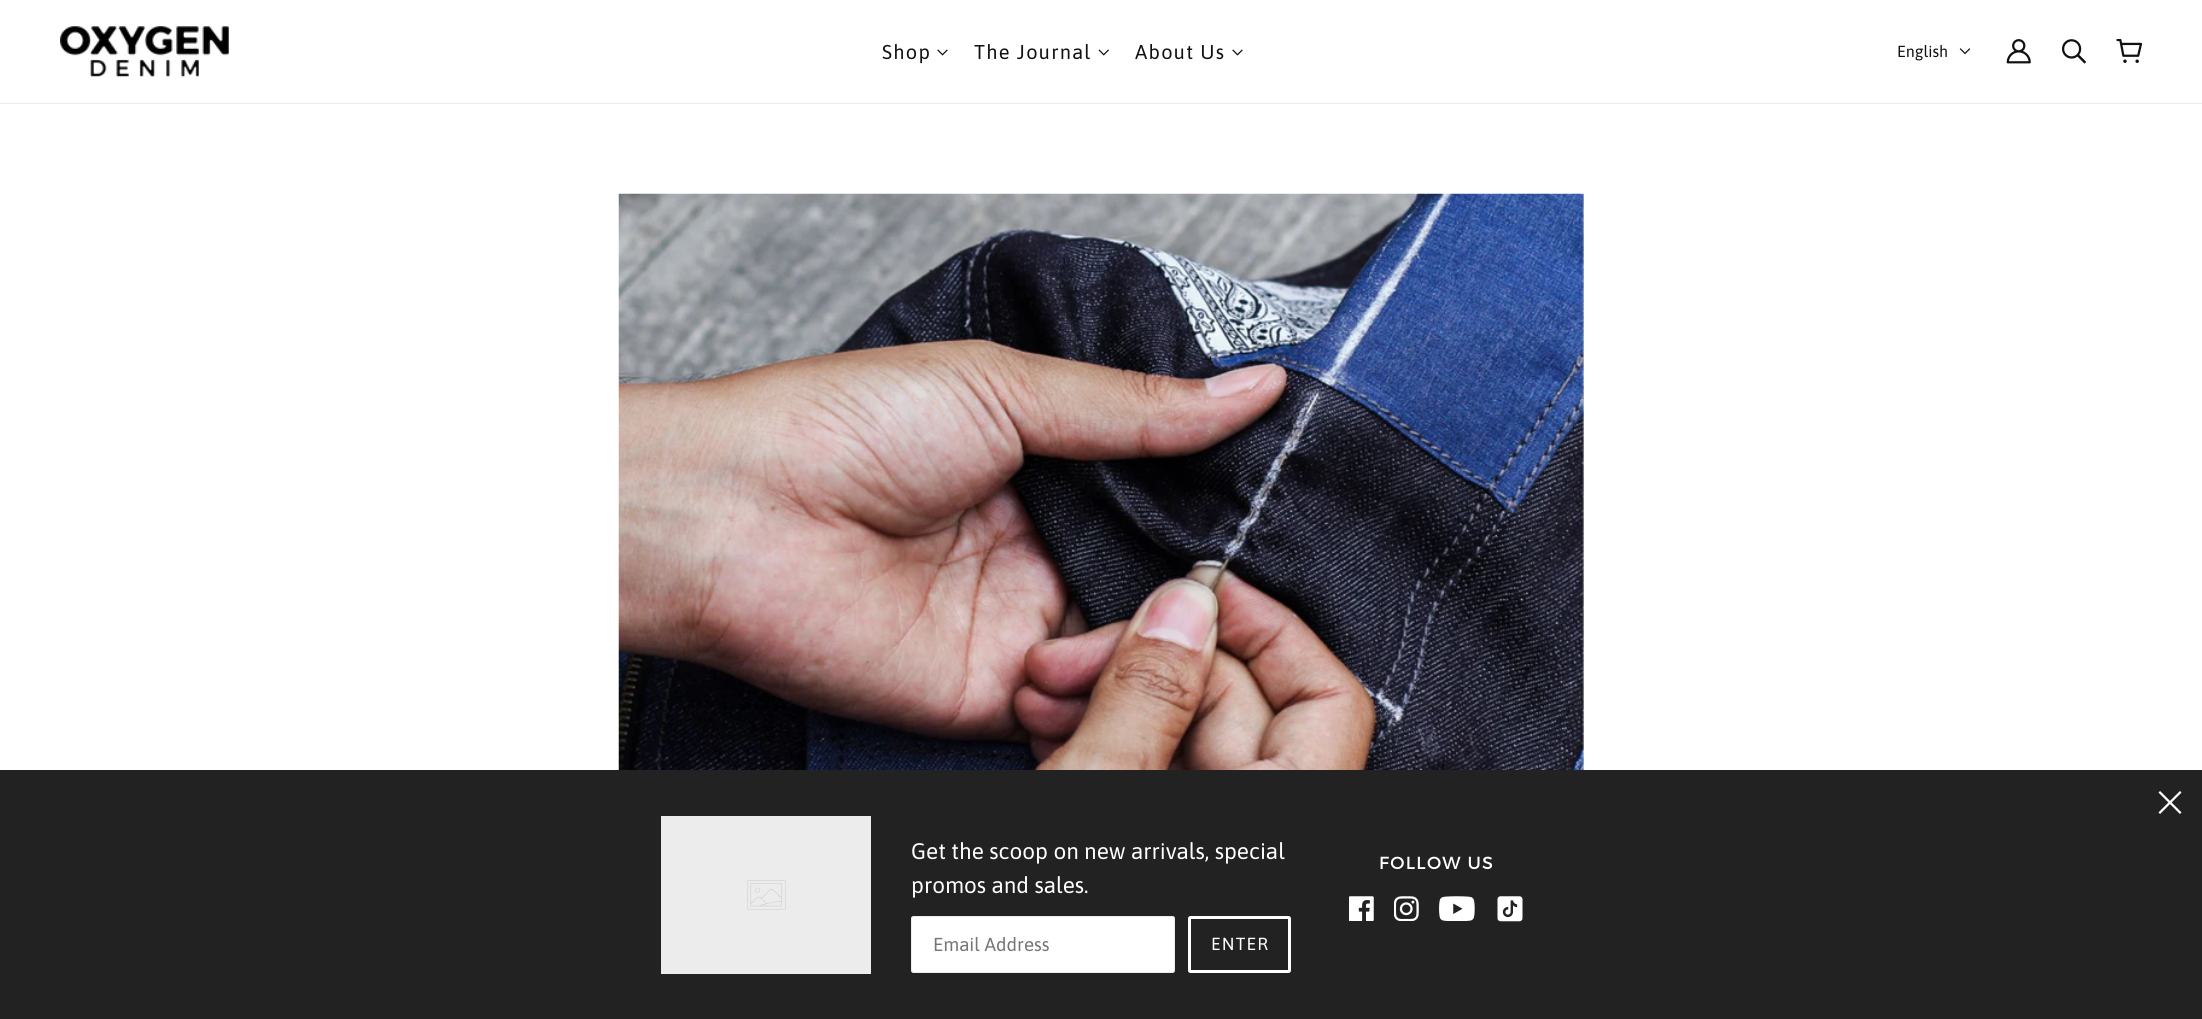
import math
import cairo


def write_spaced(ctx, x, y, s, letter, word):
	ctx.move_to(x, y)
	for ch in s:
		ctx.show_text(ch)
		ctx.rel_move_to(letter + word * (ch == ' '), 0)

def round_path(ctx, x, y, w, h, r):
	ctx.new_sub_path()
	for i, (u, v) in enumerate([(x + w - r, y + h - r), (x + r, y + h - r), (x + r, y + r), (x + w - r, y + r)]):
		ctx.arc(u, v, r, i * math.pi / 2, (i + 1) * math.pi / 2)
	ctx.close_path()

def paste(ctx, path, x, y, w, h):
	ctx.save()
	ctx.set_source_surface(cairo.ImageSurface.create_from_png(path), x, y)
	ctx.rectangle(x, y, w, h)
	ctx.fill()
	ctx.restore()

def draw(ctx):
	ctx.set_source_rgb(1, 1, 1)
	ctx.paint()
	ctx.set_source_rgb(0.918, 0.918, 0.918)
	ctx.rectangle(0, 103, 2202, 1)
	ctx.fill()
	paste(ctx, 'media/1.png', 60, 26, 169, 51)
	ctx.select_font_face('Asap')
	ctx.set_font_size(20)
	ctx.set_source_rgb(0.067, 0.067, 0.067)
	write_spaced(ctx, 882, 59, 'Shop', 1.25, 0)
	paste(ctx, 'media/2.png', 937, 49, 11, 7)
	write_spaced(ctx, 974, 59, 'The Journal', 1.25, 0)
	paste(ctx, 'media/3.png', 1098, 49, 11, 7)
	write_spaced(ctx, 1135, 59, 'About Us', 1.25, 0)
	paste(ctx, 'media/2.png', 1232, 49, 11, 7)
	ctx.set_font_size(16)
	ctx.move_to(1897, 57)
	ctx.show_text('English')
	paste(ctx, 'media/4.png', 1959, 48, 12, 7)
	paste(ctx, 'media/5.png', 2006, 39, 25, 25)
	paste(ctx, 'media/6.png', 2062, 39, 24, 25)
	paste(ctx, 'media/7.png', 2116, 39, 26, 24)
	paste(ctx, 'media/8.png', 618, 193, 966, 577)
	ctx.set_source_rgb(0.133, 0.133, 0.133)
	ctx.rectangle(0, 770, 2202, 249)
	ctx.fill()
	paste(ctx, 'media/9.png', 2158, 791, 24, 23)
	ctx.set_source_rgb(0.925, 0.925, 0.925)
	ctx.rectangle(661, 816, 210, 158)
	ctx.fill()
	paste(ctx, 'media/10.png', 747, 880, 39, 30)
	ctx.set_font_size(22.5)
	ctx.set_source_rgb(1, 1, 1)
	ctx.move_to(911, 859)
	ctx.show_text('Get the scoop on new arrivals, special')
	ctx.move_to(911, 893)
	ctx.show_text('promos and sales.')
	round_path(ctx, 911.5, 916.5, 263, 56, 2)
	ctx.fill_preserve()
	ctx.set_source_rgb(0.918, 0.918, 0.918)
	ctx.set_line_width(1)
	ctx.stroke()
	ctx.set_font_size(18.75)
	ctx.set_source_rgb(0.459, 0.459, 0.459)
	ctx.move_to(933, 951)
	ctx.show_text('Email Address')
	round_path(ctx, 1189.5, 917.5, 100, 54, 1)
	ctx.set_source_rgb(1, 1, 1)
	ctx.set_line_width(3)
	ctx.stroke()
	ctx.set_font_size(17.5)
	write_spaced(ctx, 1211, 950, 'ENTER', 1.25, 0)
	ctx.select_font_face('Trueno')
	write_spaced(ctx, 1379, 869, 'FOLLOW US', 1.25, 0)
	paste(ctx, 'media/11.png', 1349, 896, 25, 25)
	paste(ctx, 'media/12.png', 1394, 896, 25, 25)
	paste(ctx, 'media/13.png', 1439, 896, 36, 25)
	paste(ctx, 'media/14.png', 1497, 896, 26, 26)


surface = cairo.ImageSurface(cairo.FORMAT_RGB24, 2202, 1019)
ctx = cairo.Context(surface)
options = cairo.FontOptions()
options.set_hint_metrics(cairo.HINT_METRICS_OFF)
options.set_hint_style(cairo.HINT_STYLE_NONE)
ctx.set_font_options(options)
ctx.set_miter_limit(4)
draw(ctx)
surface.write_to_png('image.png')
